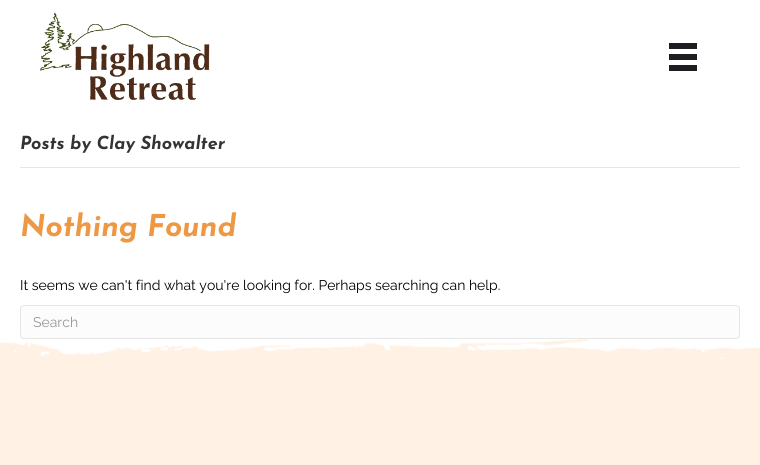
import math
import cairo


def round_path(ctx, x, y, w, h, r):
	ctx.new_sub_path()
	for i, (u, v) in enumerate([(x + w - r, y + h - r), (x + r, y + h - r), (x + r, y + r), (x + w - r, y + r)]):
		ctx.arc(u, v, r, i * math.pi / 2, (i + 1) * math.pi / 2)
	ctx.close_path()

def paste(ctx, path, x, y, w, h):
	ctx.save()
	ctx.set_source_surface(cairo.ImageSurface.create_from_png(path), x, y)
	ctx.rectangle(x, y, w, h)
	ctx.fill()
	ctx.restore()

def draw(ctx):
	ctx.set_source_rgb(1, 1, 1)
	ctx.paint()
	paste(ctx, 'media/1.png', 40, 12, 170, 88)
	ctx.set_source_rgb(0.118, 0.114, 0.133)
	ctx.rectangle(669, 43, 28, 6)
	ctx.rectangle(669, 54, 28, 6)
	ctx.rectangle(669, 65, 28, 6)
	ctx.fill()
	ctx.set_source_rgb(0.902, 0.902, 0.902)
	ctx.rectangle(20, 167, 720, 1)
	ctx.fill()
	ctx.select_font_face('Josefin Sans Thin', cairo.FONT_SLANT_ITALIC)
	ctx.set_font_size(18)
	ctx.set_source_rgb(0.2, 0.2, 0.2)
	ctx.move_to(20, 149)
	ctx.show_text('Posts by Clay Showalter')
	ctx.set_font_size(30)
	ctx.set_source_rgb(0.933, 0.596, 0.263)
	ctx.move_to(20, 236)
	ctx.show_text('Nothing Found')
	ctx.select_font_face('Raleway')
	ctx.set_font_size(14)
	ctx.set_source_rgb(0, 0, 0)
	ctx.move_to(20, 290)
	ctx.show_text('It seems we can\'t find what you\'re looking for. Perhaps searching can help.')
	ctx.set_source_rgb(0.988, 0.988, 0.988)
	round_path(ctx, 20.5, 305.5, 719, 33, 3.5)
	ctx.fill_preserve()
	ctx.set_source_rgb(0.902, 0.902, 0.902)
	ctx.set_line_width(1)
	ctx.stroke()
	ctx.set_source_rgb(0.592, 0.592, 0.592)
	ctx.move_to(33, 327)
	ctx.show_text('Search')
	paste(ctx, 'media/2.png', 0, 339, 760, 20)
	ctx.set_source_rgb(1, 0.945, 0.894)
	ctx.rectangle(0, 359, 760, 106)
	ctx.fill()


surface = cairo.ImageSurface(cairo.FORMAT_RGB24, 760, 465)
ctx = cairo.Context(surface)
options = cairo.FontOptions()
options.set_hint_metrics(cairo.HINT_METRICS_OFF)
options.set_hint_style(cairo.HINT_STYLE_NONE)
ctx.set_font_options(options)
ctx.set_miter_limit(4)
draw(ctx)
surface.write_to_png('image.png')
